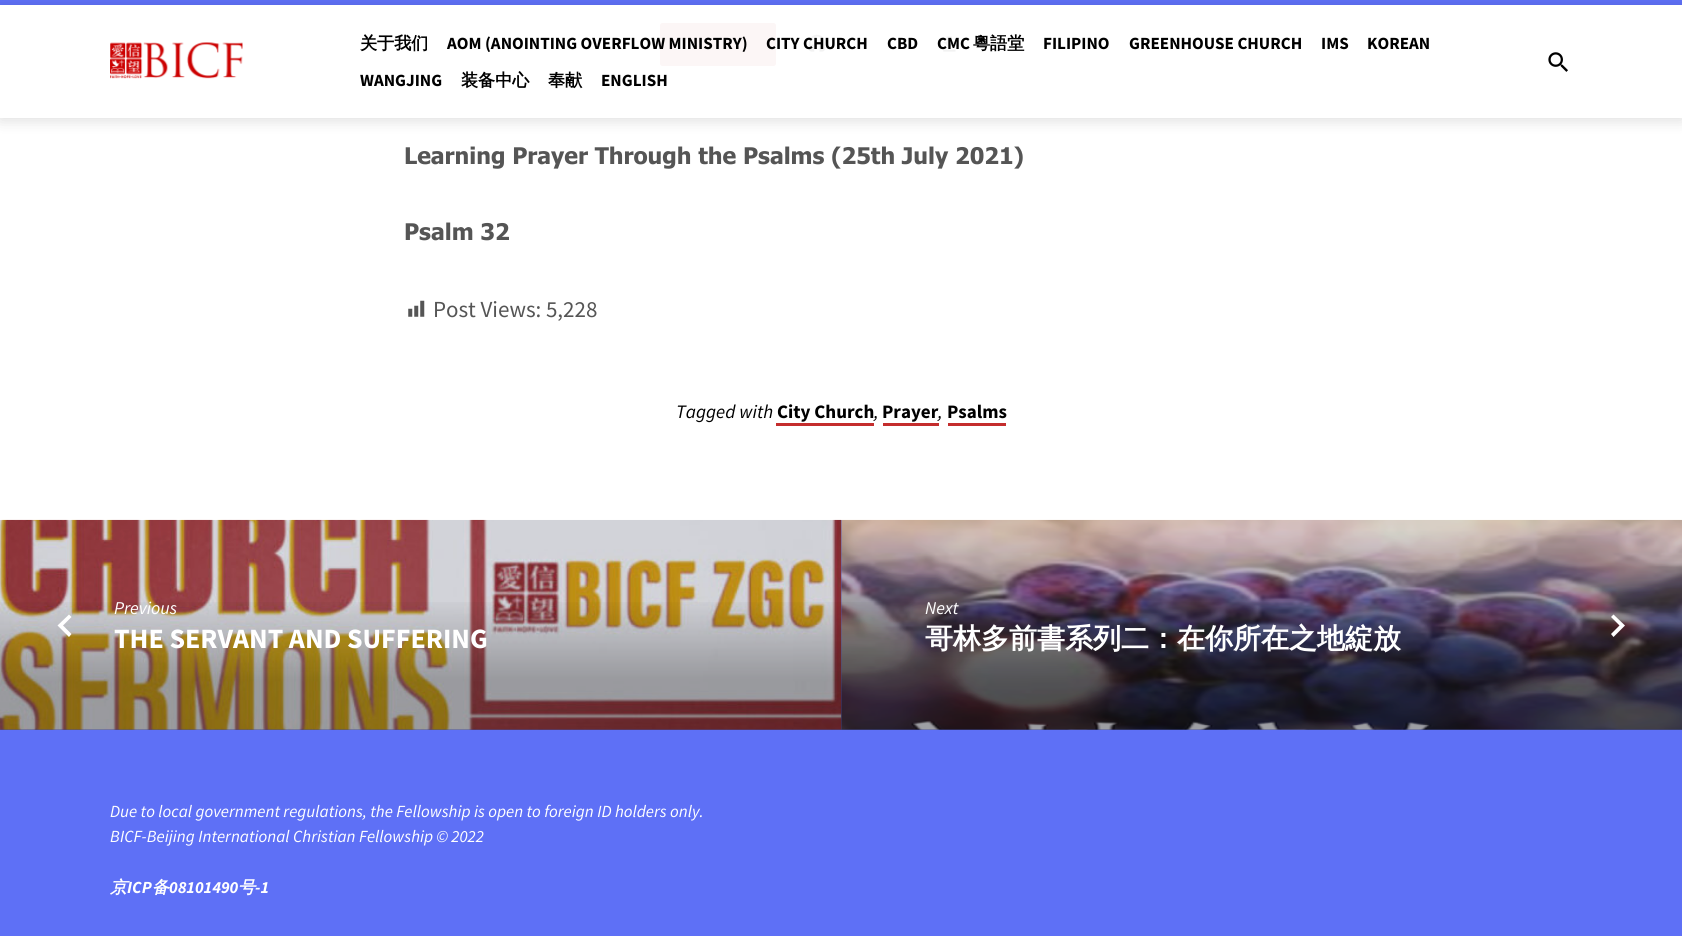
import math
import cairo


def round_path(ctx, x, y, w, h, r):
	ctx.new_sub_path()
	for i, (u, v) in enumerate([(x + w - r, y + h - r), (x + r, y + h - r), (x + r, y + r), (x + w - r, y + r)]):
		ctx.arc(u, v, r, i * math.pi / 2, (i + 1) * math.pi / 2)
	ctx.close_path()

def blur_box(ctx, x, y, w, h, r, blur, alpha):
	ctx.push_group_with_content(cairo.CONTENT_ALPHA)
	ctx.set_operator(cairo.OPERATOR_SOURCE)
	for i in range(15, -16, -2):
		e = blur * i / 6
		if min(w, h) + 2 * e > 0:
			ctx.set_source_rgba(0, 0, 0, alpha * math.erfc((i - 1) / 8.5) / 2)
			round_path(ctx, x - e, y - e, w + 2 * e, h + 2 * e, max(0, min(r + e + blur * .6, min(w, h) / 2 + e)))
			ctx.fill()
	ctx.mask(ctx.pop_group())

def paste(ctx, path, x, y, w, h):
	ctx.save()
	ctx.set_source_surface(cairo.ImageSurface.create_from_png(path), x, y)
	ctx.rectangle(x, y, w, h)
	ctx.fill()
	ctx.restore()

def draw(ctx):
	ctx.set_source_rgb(1, 1, 1)
	ctx.paint()
	ctx.set_source_rgb(0.369, 0.439, 0.961)
	ctx.rectangle(0, 0, 1682, 5)
	ctx.fill()
	ctx.set_source_rgb(0.988, 0.961, 0.961)
	round_path(ctx, 660, 23, 116, 43, 2.5)
	ctx.fill()
	paste(ctx, 'media/3.png', 676, 39, 17, 11)
	paste(ctx, 'media/4.png', 808, 34, 17, 18)
	paste(ctx, 'media/5.png', 943, 36, 13, 16)
	ctx.save()
	ctx.set_fill_rule(cairo.FILL_RULE_EVEN_ODD)
	ctx.new_path()
	ctx.move_to(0, 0)
	ctx.line_to(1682, 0)
	ctx.line_to(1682, 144)
	ctx.line_to(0, 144)
	ctx.close_path()
	ctx.move_to(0, 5)
	ctx.line_to(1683, 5)
	ctx.line_to(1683, 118)
	ctx.line_to(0, 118)
	ctx.close_path()
	ctx.clip()
	ctx.set_source_rgb(0, 0, 0)
	blur_box(ctx, 0, 8, 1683, 112, 0, 7.5, 0.14)
	ctx.restore()
	paste(ctx, 'media/1.png', 110, 42, 133, 37)
	ctx.select_font_face('WenQuanYi Zen Hei', cairo.FONT_SLANT_NORMAL, cairo.FONT_WEIGHT_BOLD)
	ctx.set_font_size(17.1)
	ctx.set_source_rgb(0, 0, 0)
	ctx.move_to(360, 49)
	ctx.show_text('关于我们')
	ctx.select_font_face('Source Sans Pro', cairo.FONT_SLANT_NORMAL, cairo.FONT_WEIGHT_BOLD)
	for x, y, s in [
		(447, 49, 'AOM (ANOINTING OVERFLOW MINISTRY)'),
		(766, 49, 'CITY CHURCH'),
		(887, 49, 'CBD'),
		(937, 49, 'CMC'),
	]:
		ctx.move_to(x, y)
		ctx.show_text(s)
	ctx.select_font_face('WenQuanYi Zen Hei', cairo.FONT_SLANT_NORMAL, cairo.FONT_WEIGHT_BOLD)
	ctx.move_to(973, 49)
	ctx.show_text('粵語堂')
	ctx.select_font_face('Source Sans Pro', cairo.FONT_SLANT_NORMAL, cairo.FONT_WEIGHT_BOLD)
	for x, y, s in [
		(1043, 49, 'FILIPINO'),
		(1129, 49, 'GREENHOUSE CHURCH'),
		(1321, 49, 'IMS'),
		(1367, 49, 'KOREAN'),
		(360, 86, 'WANGJING'),
	]:
		ctx.move_to(x, y)
		ctx.show_text(s)
	ctx.select_font_face('WenQuanYi Zen Hei', cairo.FONT_SLANT_NORMAL, cairo.FONT_WEIGHT_BOLD)
	ctx.move_to(461, 86)
	ctx.show_text('装备中心')
	ctx.move_to(548, 86)
	ctx.show_text('奉献')
	ctx.select_font_face('Source Sans Pro', cairo.FONT_SLANT_NORMAL, cairo.FONT_WEIGHT_BOLD)
	ctx.move_to(601, 86)
	ctx.show_text('ENGLISH')
	paste(ctx, 'media/2.png', 1548, 52, 20, 20)
	ctx.select_font_face('Tahoma', cairo.FONT_SLANT_NORMAL, cairo.FONT_WEIGHT_BOLD)
	ctx.set_font_size(23)
	ctx.set_source_rgb(0.333, 0.333, 0.333)
	ctx.move_to(404, 164)
	ctx.show_text('Learning Prayer Through the Psalms (25th July 2021)')
	ctx.move_to(404, 240)
	ctx.show_text('Psalm 32')
	paste(ctx, 'media/6.png', 408, 300, 17, 17)
	ctx.select_font_face('Source Sans Pro')
	ctx.move_to(433, 317)
	ctx.show_text('Post Views: 5,228')
	ctx.select_font_face('Source Sans Pro', cairo.FONT_SLANT_ITALIC)
	ctx.set_font_size(19)
	ctx.set_source_rgb(0, 0, 0)
	ctx.move_to(676, 418)
	ctx.show_text('Tagged with')
	ctx.select_font_face('Source Sans Pro', cairo.FONT_SLANT_NORMAL, cairo.FONT_WEIGHT_BOLD)
	ctx.move_to(777, 418)
	ctx.show_text('City Church')
	ctx.set_source_rgb(0.769, 0.176, 0.176)
	ctx.rectangle(776, 423, 98, 3)
	ctx.fill()
	ctx.select_font_face('Source Sans Pro', cairo.FONT_SLANT_ITALIC)
	ctx.set_source_rgb(0, 0, 0)
	ctx.move_to(874, 418)
	ctx.show_text(',')
	ctx.select_font_face('Source Sans Pro', cairo.FONT_SLANT_NORMAL, cairo.FONT_WEIGHT_BOLD)
	ctx.move_to(882, 418)
	ctx.show_text('Prayer')
	ctx.set_source_rgb(0.769, 0.176, 0.176)
	ctx.rectangle(883, 423, 56, 3)
	ctx.fill()
	ctx.select_font_face('Source Sans Pro', cairo.FONT_SLANT_ITALIC)
	ctx.set_source_rgb(0, 0, 0)
	ctx.move_to(938, 418)
	ctx.show_text(',')
	ctx.select_font_face('Source Sans Pro', cairo.FONT_SLANT_NORMAL, cairo.FONT_WEIGHT_BOLD)
	ctx.move_to(947, 418)
	ctx.show_text('Psalms')
	ctx.set_source_rgb(0.769, 0.176, 0.176)
	ctx.rectangle(948, 423, 58, 3)
	ctx.fill()
	ctx.set_source_rgb(0.369, 0.439, 0.961)
	ctx.rectangle(841, 520, 841, 210)
	ctx.fill()
	ctx.set_source_rgb(0.333, 0.396, 0.867)
	ctx.rectangle(0, 520, 841, 210)
	ctx.fill()
	paste(ctx, 'media/7.png', 0, 519, 842, 211)
	gradient = cairo.LinearGradient(425, 520, 425, 730)
	gradient.add_color_stop_rgba(0, 0.024, 0.024, 0.024, 0)
	gradient.add_color_stop_rgba(0.36, 0.024, 0.024, 0.024, 0)
	gradient.add_color_stop_rgba(0.76, 0.024, 0.024, 0.024, 0.28)
	gradient.add_color_stop_rgba(1, 0.024, 0.024, 0.024, 0.28)
	ctx.set_source(gradient)
	ctx.rectangle(0, 602, 841, 128)
	ctx.fill()
	ctx.set_source_rgb(1, 1, 1)
	ctx.new_path()
	ctx.move_to(71.5, 634)
	ctx.line_to(63, 625.5)
	ctx.line_to(71.5, 617)
	ctx.line_to(69, 614.5)
	ctx.line_to(57.5, 625.5)
	ctx.line_to(69, 637)
	ctx.close_path()
	ctx.fill()
	ctx.select_font_face('Source Sans Pro', cairo.FONT_SLANT_ITALIC)
	ctx.set_font_size(18)
	ctx.move_to(114, 614)
	ctx.show_text('Previous')
	ctx.select_font_face('Source Sans Pro', cairo.FONT_SLANT_NORMAL, cairo.FONT_WEIGHT_BOLD)
	ctx.set_font_size(28)
	ctx.move_to(114, 648)
	ctx.show_text('THE SERVANT AND SUFFERING')
	paste(ctx, 'media/8.png', 841, 519, 841, 211)
	ctx.set_source_rgba(0.024, 0.024, 0.024, 0.1)
	ctx.rectangle(841, 520, 841, 210)
	ctx.fill()
	gradient = cairo.LinearGradient(1266, 520, 1266, 730)
	gradient.add_color_stop_rgba(0, 0.024, 0.024, 0.024, 0)
	gradient.add_color_stop_rgba(0.36, 0.024, 0.024, 0.024, 0)
	gradient.add_color_stop_rgba(0.76, 0.024, 0.024, 0.024, 0.28)
	gradient.add_color_stop_rgba(1, 0.024, 0.024, 0.024, 0.28)
	ctx.set_source(gradient)
	ctx.rectangle(841, 602, 841, 128)
	ctx.fill()
	ctx.select_font_face('Source Sans Pro', cairo.FONT_SLANT_ITALIC)
	ctx.set_font_size(18)
	ctx.set_source_rgb(1, 1, 1)
	ctx.move_to(925, 614)
	ctx.show_text('Next')
	ctx.select_font_face('WenQuanYi Zen Hei', cairo.FONT_SLANT_NORMAL, cairo.FONT_WEIGHT_BOLD)
	ctx.set_font_size(28)
	ctx.move_to(925, 648)
	ctx.show_text('哥林多前書系列二：在你所在之地綻放')
	ctx.new_path()
	ctx.move_to(1611, 634)
	ctx.line_to(1619.5, 625.5)
	ctx.line_to(1611, 617)
	ctx.line_to(1613.5, 614.5)
	ctx.line_to(1625, 625.5)
	ctx.line_to(1613.5, 637)
	ctx.close_path()
	ctx.fill()
	ctx.set_source_rgb(0.369, 0.439, 0.961)
	ctx.rectangle(0, 730, 1682, 206)
	ctx.fill()
	ctx.select_font_face('Source Sans Pro', cairo.FONT_SLANT_ITALIC)
	ctx.set_font_size(17)
	ctx.set_source_rgb(1, 1, 1)
	ctx.move_to(110, 817)
	ctx.show_text('Due to local government regulations, the Fellowship is open to foreign ID holders only.')
	ctx.move_to(110, 842)
	ctx.show_text('BICF-Beijing International Christian Fellowship © 2022')
	ctx.select_font_face('WenQuanYi Zen Hei', cairo.FONT_SLANT_ITALIC, cairo.FONT_WEIGHT_BOLD)
	ctx.move_to(110, 893)
	ctx.show_text('京')
	ctx.select_font_face('Source Sans Pro', cairo.FONT_SLANT_ITALIC, cairo.FONT_WEIGHT_BOLD)
	ctx.move_to(127, 893)
	ctx.show_text('ICP')
	ctx.select_font_face('WenQuanYi Zen Hei', cairo.FONT_SLANT_ITALIC, cairo.FONT_WEIGHT_BOLD)
	ctx.move_to(152, 893)
	ctx.show_text('备')
	ctx.select_font_face('Source Sans Pro', cairo.FONT_SLANT_ITALIC, cairo.FONT_WEIGHT_BOLD)
	ctx.move_to(169, 893)
	ctx.show_text('08101490')
	ctx.select_font_face('WenQuanYi Zen Hei', cairo.FONT_SLANT_ITALIC, cairo.FONT_WEIGHT_BOLD)
	ctx.move_to(238, 893)
	ctx.show_text('号')
	ctx.select_font_face('Source Sans Pro', cairo.FONT_SLANT_ITALIC, cairo.FONT_WEIGHT_BOLD)
	ctx.move_to(255, 893)
	ctx.show_text('-1')


surface = cairo.ImageSurface(cairo.FORMAT_RGB24, 1682, 936)
ctx = cairo.Context(surface)
options = cairo.FontOptions()
options.set_hint_metrics(cairo.HINT_METRICS_OFF)
options.set_hint_style(cairo.HINT_STYLE_NONE)
ctx.set_font_options(options)
ctx.set_miter_limit(4)
draw(ctx)
surface.write_to_png('image.png')
